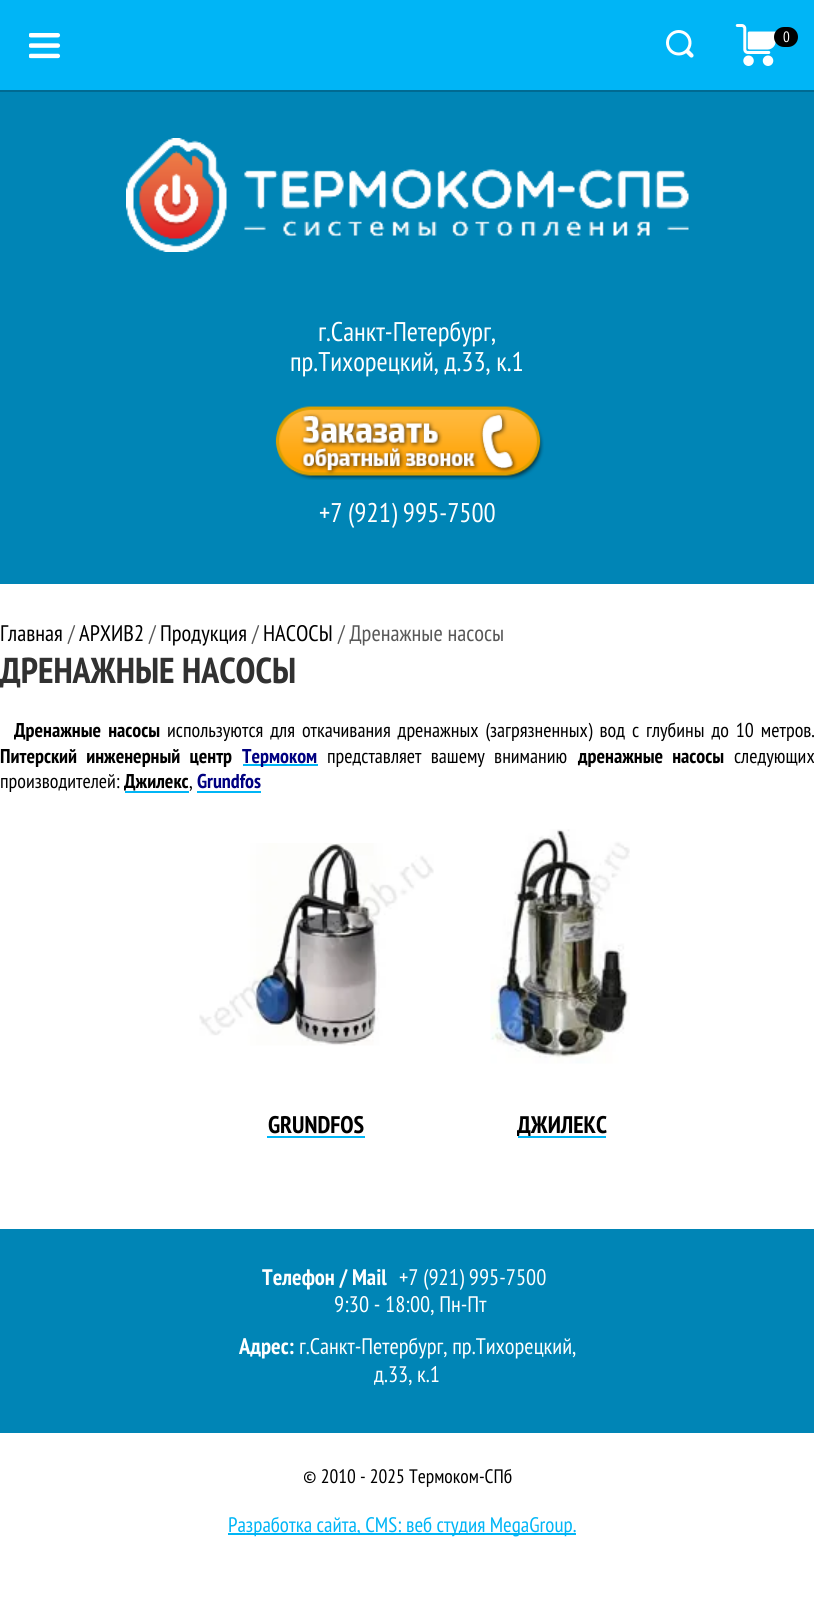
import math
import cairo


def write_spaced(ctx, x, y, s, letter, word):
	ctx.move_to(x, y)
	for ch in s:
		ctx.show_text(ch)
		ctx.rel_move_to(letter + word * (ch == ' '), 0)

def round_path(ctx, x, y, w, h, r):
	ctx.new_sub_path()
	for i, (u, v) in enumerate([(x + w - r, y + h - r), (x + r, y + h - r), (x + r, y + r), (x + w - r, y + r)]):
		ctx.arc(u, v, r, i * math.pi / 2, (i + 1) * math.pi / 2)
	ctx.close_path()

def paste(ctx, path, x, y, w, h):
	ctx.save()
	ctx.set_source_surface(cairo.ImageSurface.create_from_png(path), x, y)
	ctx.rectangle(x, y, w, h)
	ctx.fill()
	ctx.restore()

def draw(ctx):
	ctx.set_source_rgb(1, 1, 1)
	ctx.paint()
	ctx.set_source_rgb(0, 0.416, 0.573)
	ctx.new_path()
	ctx.move_to(0, 90)
	ctx.line_to(0, 92)
	ctx.line_to(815, 92)
	ctx.line_to(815, 2)
	ctx.line_to(814, 2)
	ctx.line_to(814, 90)
	ctx.close_path()
	ctx.fill()
	ctx.set_source_rgb(0, 0.71, 0.961)
	ctx.rectangle(0, 0, 814, 90)
	ctx.fill()
	paste(ctx, 'media/1.png', 29, 33, 32, 26)
	paste(ctx, 'media/2.png', 666, 30, 28, 28)
	paste(ctx, 'media/3.png', 735, 24, 41, 42)
	ctx.set_source_rgb(0, 0, 0)
	round_path(ctx, 774, 27, 24, 20, 10)
	ctx.fill()
	ctx.select_font_face('PT Sans Narrow')
	ctx.set_font_size(15)
	ctx.set_source_rgb(1, 1, 1)
	ctx.move_to(783, 42)
	ctx.show_text('0')
	ctx.set_source_rgb(0, 0.522, 0.714)
	ctx.rectangle(0, 92, 814, 492)
	ctx.fill()
	paste(ctx, 'media/4.png', 126, 138, 563, 114)
	ctx.set_font_size(27)
	ctx.set_source_rgb(1, 1, 1)
	ctx.move_to(318, 341)
	ctx.show_text('г.Санкт-Петербург,')
	ctx.move_to(290, 371)
	ctx.show_text('пр.Тихорецкий, д.33, к.1')
	paste(ctx, 'media/5.png', 275, 406, 269, 74)
	ctx.move_to(319, 522)
	ctx.show_text('+7 (921) 995-7500')
	ctx.set_font_size(22.5)
	ctx.set_source_rgb(0, 0, 0)
	ctx.move_to(0, 641)
	ctx.show_text('Главная')
	ctx.set_source_rgb(0.345, 0.345, 0.345)
	ctx.move_to(68, 641)
	ctx.show_text('/')
	ctx.set_source_rgb(0, 0, 0)
	ctx.move_to(79, 641)
	ctx.show_text('АРХИВ2')
	ctx.set_source_rgb(0.345, 0.345, 0.345)
	ctx.move_to(149, 641)
	ctx.show_text('/')
	ctx.set_source_rgb(0, 0, 0)
	ctx.move_to(160, 641)
	ctx.show_text('Продукция')
	ctx.set_source_rgb(0.345, 0.345, 0.345)
	ctx.move_to(252, 641)
	ctx.show_text('/')
	ctx.set_source_rgb(0, 0, 0)
	ctx.move_to(263, 641)
	ctx.show_text('НАСОСЫ')
	ctx.set_source_rgb(0.345, 0.345, 0.345)
	ctx.move_to(338, 641)
	ctx.show_text('/ Дренажные насосы')
	ctx.select_font_face('PT Sans Narrow', cairo.FONT_SLANT_NORMAL, cairo.FONT_WEIGHT_BOLD)
	ctx.set_font_size(36)
	ctx.set_source_rgb(0.192, 0.192, 0.192)
	ctx.move_to(0, 683)
	ctx.show_text('ДРЕНАЖНЫЕ НАСОСЫ')
	ctx.set_font_size(20)
	ctx.set_source_rgb(0, 0, 0)
	write_spaced(ctx, 14, 737, 'Дренажные насосы', 0, 3)
	ctx.select_font_face('PT Sans Narrow')
	write_spaced(ctx, 167, 737, 'используются для откачивания дренажных (загрязненных) вод с глубины до 10 метров.', 0, 2.75)
	ctx.select_font_face('PT Sans Narrow', cairo.FONT_SLANT_NORMAL, cairo.FONT_WEIGHT_BOLD)
	write_spaced(ctx, 0, 763, 'Питерский инженерный центр', 0, 5)
	ctx.set_source_rgb(0, 0.71, 0.961)
	ctx.rectangle(243, 764, 75, 2)
	ctx.fill()
	ctx.set_source_rgb(0, 0, 0.502)
	ctx.move_to(242, 763)
	ctx.show_text('Термоком')
	ctx.select_font_face('PT Sans Narrow')
	ctx.set_source_rgb(0, 0, 0)
	write_spaced(ctx, 327, 763, 'представляет вашему вниманию', 0, 5)
	ctx.select_font_face('PT Sans Narrow', cairo.FONT_SLANT_NORMAL, cairo.FONT_WEIGHT_BOLD)
	write_spaced(ctx, 578, 763, 'дренажные насосы', 0, 5)
	ctx.select_font_face('PT Sans Narrow')
	ctx.move_to(734, 763)
	ctx.show_text('следующих')
	ctx.move_to(0, 788)
	ctx.show_text('производителей:')
	ctx.select_font_face('PT Sans Narrow', cairo.FONT_SLANT_NORMAL, cairo.FONT_WEIGHT_BOLD)
	ctx.move_to(124, 788)
	ctx.show_text('Джилекс')
	ctx.select_font_face('PT Sans Narrow')
	ctx.move_to(189, 788)
	ctx.show_text(',')
	ctx.set_source_rgb(0, 0.71, 0.961)
	ctx.rectangle(125, 791, 64, 2)
	ctx.fill()
	ctx.rectangle(197, 791, 64, 2)
	ctx.fill()
	ctx.select_font_face('PT Sans Narrow', cairo.FONT_SLANT_NORMAL, cairo.FONT_WEIGHT_BOLD)
	ctx.set_source_rgb(0, 0, 0.502)
	ctx.move_to(197, 788)
	ctx.show_text('Grundfos')
	paste(ctx, 'media/6.png', 199, 843, 235, 203)
	paste(ctx, 'media/7.png', 490, 829, 140, 235)
	ctx.set_font_size(24)
	ctx.set_source_rgb(0, 0, 0)
	ctx.move_to(268, 1133)
	ctx.show_text('GRUNDFOS')
	ctx.set_source_rgb(0, 0.71, 0.961)
	ctx.rectangle(267, 1136, 98, 2)
	ctx.fill()
	ctx.set_source_rgb(0, 0, 0)
	ctx.move_to(517, 1133)
	ctx.show_text('ДЖИЛЕКС')
	ctx.set_source_rgb(0, 0.71, 0.961)
	ctx.rectangle(518, 1136, 88, 2)
	ctx.fill()
	ctx.set_source_rgb(0, 0.522, 0.714)
	ctx.rectangle(0, 1229, 814, 204)
	ctx.fill()
	ctx.set_font_size(22.5)
	ctx.set_source_rgb(1, 1, 1)
	ctx.move_to(262, 1285)
	ctx.show_text('Телефон / Mail')
	ctx.select_font_face('PT Sans Narrow')
	ctx.move_to(399, 1285)
	ctx.show_text('+7 (921) 995-7500')
	ctx.move_to(334, 1312)
	ctx.show_text('9:30 - 18:00, Пн-Пт')
	ctx.select_font_face('PT Sans Narrow', cairo.FONT_SLANT_NORMAL, cairo.FONT_WEIGHT_BOLD)
	ctx.move_to(239, 1354)
	ctx.show_text('Адрес:')
	ctx.select_font_face('PT Sans Narrow')
	ctx.move_to(299, 1354)
	ctx.show_text('г.Санкт-Петербург, пр.Тихорецкий,')
	ctx.move_to(374, 1382)
	ctx.show_text('д.33, к.1')
	ctx.set_font_size(19.5)
	ctx.set_source_rgb(0, 0, 0)
	ctx.move_to(303, 1483)
	ctx.show_text('© 2010 - 2025 Термоком-СПб')
	ctx.set_source_rgb(0, 0.71, 0.961)
	ctx.rectangle(228, 1533, 348, 2)
	ctx.fill()
	ctx.set_font_size(21)
	ctx.move_to(228, 1532)
	ctx.show_text('Разработка сайта, CMS: веб студия MegaGroup.')


surface = cairo.ImageSurface(cairo.FORMAT_RGB24, 814, 1604)
ctx = cairo.Context(surface)
options = cairo.FontOptions()
options.set_hint_metrics(cairo.HINT_METRICS_OFF)
options.set_hint_style(cairo.HINT_STYLE_NONE)
ctx.set_font_options(options)
ctx.set_miter_limit(4)
draw(ctx)
surface.write_to_png('image.png')
